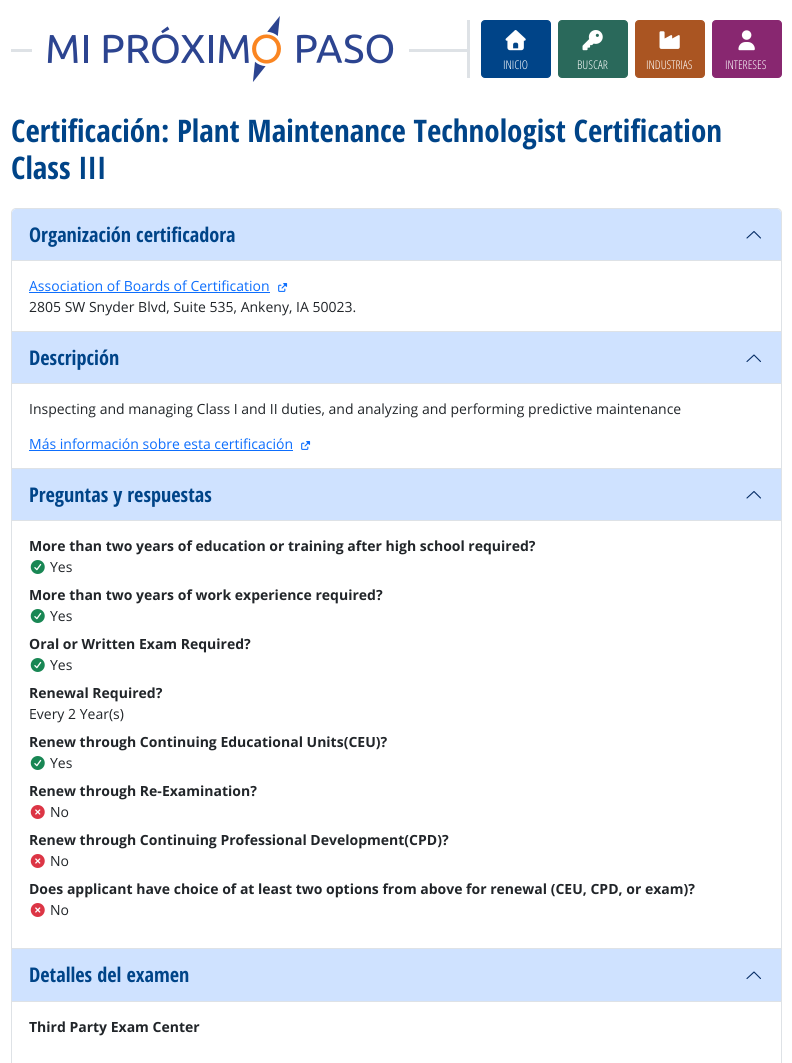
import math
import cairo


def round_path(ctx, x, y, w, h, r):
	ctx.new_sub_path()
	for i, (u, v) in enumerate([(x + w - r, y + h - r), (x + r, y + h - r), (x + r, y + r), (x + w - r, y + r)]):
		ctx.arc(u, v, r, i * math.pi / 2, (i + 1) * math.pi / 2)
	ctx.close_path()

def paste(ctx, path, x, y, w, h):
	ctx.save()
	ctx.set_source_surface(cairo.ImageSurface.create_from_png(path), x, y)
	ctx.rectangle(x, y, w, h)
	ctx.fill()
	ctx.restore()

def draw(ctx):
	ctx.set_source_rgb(1, 1, 1)
	ctx.paint()
	ctx.set_source_rgb(0.871, 0.886, 0.902)
	ctx.rectangle(11, 49, 456, 3)
	ctx.fill()
	ctx.set_source_rgb(1, 1, 1)
	ctx.rectangle(32, 49, 377, 3)
	ctx.fill()
	paste(ctx, 'media/1.png', 47, 16, 347, 66)
	ctx.set_source_rgb(0.871, 0.886, 0.902)
	ctx.rectangle(467, 20, 3, 58)
	ctx.fill()
	ctx.set_source_rgb(0, 0.267, 0.533)
	round_path(ctx, 481.5, 20.5, 69, 57, 3.5)
	ctx.fill_preserve()
	ctx.set_line_width(1)
	ctx.stroke()
	paste(ctx, 'media/2.png', 505, 30, 21, 21)
	ctx.select_font_face('Open Sans Light')
	ctx.set_font_size(12)
	ctx.set_source_rgb(1, 1, 1)
	ctx.move_to(503, 69)
	ctx.show_text('INICIO')
	ctx.set_source_rgb(0.165, 0.412, 0.357)
	round_path(ctx, 558.5, 20.5, 69, 57, 3.5)
	ctx.fill_preserve()
	ctx.stroke()
	paste(ctx, 'media/3.png', 582, 30, 21, 21)
	ctx.set_source_rgb(1, 1, 1)
	ctx.move_to(577, 69)
	ctx.show_text('BUSCAR')
	ctx.set_source_rgb(0.667, 0.333, 0.133)
	round_path(ctx, 635.5, 20.5, 69, 57, 3.5)
	ctx.fill_preserve()
	ctx.stroke()
	paste(ctx, 'media/4.png', 659, 31, 21, 18)
	ctx.set_source_rgb(1, 1, 1)
	ctx.move_to(646, 69)
	ctx.show_text('INDUSTRIAS')
	ctx.set_source_rgb(0.533, 0.153, 0.439)
	round_path(ctx, 712.5, 20.5, 69, 57, 3.5)
	ctx.fill_preserve()
	ctx.stroke()
	paste(ctx, 'media/5.png', 738, 30, 17, 21)
	ctx.set_source_rgb(1, 1, 1)
	ctx.move_to(725, 69)
	ctx.show_text('INTERESES')
	ctx.select_font_face('Open Sans Condensed', cairo.FONT_SLANT_NORMAL, cairo.FONT_WEIGHT_BOLD)
	ctx.set_font_size(31.1)
	ctx.set_source_rgb(0, 0.267, 0.533)
	ctx.move_to(11, 142)
	ctx.show_text('Certificación: Plant Maintenance Technologist Certification')
	ctx.move_to(11, 179)
	ctx.show_text('Class III')
	ctx.new_path()
	ctx.move_to(16, 208.5)
	ctx.line_to(777, 208.5)
	ctx.curve_to(779.5, 208.5, 781.5, 210.5, 781.5, 213)
	ctx.line_to(781.5, 331.5)
	ctx.line_to(11.5, 331.5)
	ctx.line_to(11.5, 213)
	ctx.curve_to(11.5, 210.5, 13.5, 208.5, 16, 208.5)
	ctx.close_path()
	ctx.set_source_rgb(0.871, 0.886, 0.902)
	ctx.stroke()
	ctx.set_source_rgb(0.812, 0.886, 1)
	ctx.new_path()
	ctx.move_to(16, 209)
	ctx.line_to(777, 209)
	ctx.curve_to(779, 209, 781, 211, 781, 213)
	ctx.line_to(781, 261)
	ctx.line_to(12, 261)
	ctx.line_to(12, 213)
	ctx.curve_to(12, 211, 14, 209, 16, 209)
	ctx.close_path()
	ctx.fill()
	ctx.set_source_rgb(0.871, 0.886, 0.902)
	ctx.rectangle(12, 260, 769, 1)
	ctx.fill()
	ctx.set_font_size(20.25)
	ctx.set_source_rgb(0, 0.267, 0.533)
	ctx.move_to(29, 242)
	ctx.show_text('Organización certificadora')
	ctx.new_path()
	ctx.move_to(760.5, 238)
	ctx.line_to(754, 231.5)
	ctx.line_to(747, 238)
	ctx.set_source_rgb(0.02, 0.173, 0.396)
	ctx.set_line_width(1.1)
	ctx.set_line_cap(cairo.LINE_CAP_ROUND)
	ctx.set_line_join(cairo.LINE_JOIN_ROUND)
	ctx.stroke()
	ctx.select_font_face('Open Sans')
	ctx.set_font_size(14)
	ctx.set_source_rgb(0.051, 0.431, 0.992)
	ctx.move_to(29, 291)
	ctx.show_text('Association of Boards of Certification')
	ctx.rectangle(29, 292, 241, 1)
	ctx.fill()
	paste(ctx, 'media/6.png', 278, 283, 10, 9)
	ctx.set_source_rgb(0.129, 0.145, 0.161)
	ctx.move_to(29, 312)
	ctx.show_text('2805 SW Snyder Blvd, Suite 535, Ankeny, IA 50023.')
	ctx.set_source_rgb(0.871, 0.886, 0.902)
	ctx.rectangle(781, 332, 1, 731)
	ctx.rectangle(11, 468, 771, 1)
	ctx.rectangle(11, 332, 1, 137)
	ctx.fill()
	ctx.set_source_rgb(0.812, 0.886, 1)
	ctx.rectangle(12, 332, 769, 51)
	ctx.fill()
	ctx.set_source_rgb(0.871, 0.886, 0.902)
	ctx.rectangle(12, 383, 769, 1)
	ctx.fill()
	ctx.select_font_face('Open Sans Condensed', cairo.FONT_SLANT_NORMAL, cairo.FONT_WEIGHT_BOLD)
	ctx.set_font_size(20.25)
	ctx.set_source_rgb(0, 0.267, 0.533)
	ctx.move_to(29, 365)
	ctx.show_text('Descripción')
	ctx.new_path()
	ctx.move_to(760.5, 361.5)
	ctx.line_to(754, 355)
	ctx.line_to(747, 361.5)
	ctx.set_source_rgb(0.02, 0.173, 0.396)
	ctx.stroke()
	ctx.select_font_face('Open Sans')
	ctx.set_font_size(14)
	ctx.set_source_rgb(0.129, 0.145, 0.161)
	ctx.move_to(29, 414)
	ctx.show_text('Inspecting and managing Class I and II duties, and analyzing and performing predictive maintenance')
	ctx.set_source_rgb(0.051, 0.431, 0.992)
	ctx.move_to(29, 449)
	ctx.show_text('Más información sobre esta certificación')
	ctx.rectangle(29, 450, 264, 1)
	ctx.fill()
	paste(ctx, 'media/6.png', 301, 441, 10, 9)
	ctx.set_source_rgb(0.871, 0.886, 0.902)
	ctx.rectangle(11, 948, 771, 1)
	ctx.rectangle(11, 469, 1, 594)
	ctx.fill()
	ctx.set_source_rgb(0.812, 0.886, 1)
	ctx.rectangle(12, 469, 769, 51)
	ctx.fill()
	ctx.set_source_rgb(0.871, 0.886, 0.902)
	ctx.rectangle(12, 520, 769, 1)
	ctx.fill()
	ctx.select_font_face('Open Sans Condensed', cairo.FONT_SLANT_NORMAL, cairo.FONT_WEIGHT_BOLD)
	ctx.set_font_size(20.25)
	ctx.set_source_rgb(0, 0.267, 0.533)
	ctx.move_to(29, 502)
	ctx.show_text('Preguntas y respuestas')
	ctx.new_path()
	ctx.move_to(760.5, 498)
	ctx.line_to(754, 491.5)
	ctx.line_to(747, 498)
	ctx.set_source_rgb(0.02, 0.173, 0.396)
	ctx.stroke()
	ctx.select_font_face('Open Sans', cairo.FONT_SLANT_NORMAL, cairo.FONT_WEIGHT_BOLD)
	ctx.set_font_size(14)
	ctx.set_source_rgb(0.129, 0.145, 0.161)
	ctx.move_to(29, 551)
	ctx.show_text('More than two years of education or training after high school required?')
	paste(ctx, 'media/7.png', 30, 560, 15, 14)
	ctx.select_font_face('Open Sans')
	ctx.move_to(50, 572)
	ctx.show_text('Yes')
	ctx.select_font_face('Open Sans', cairo.FONT_SLANT_NORMAL, cairo.FONT_WEIGHT_BOLD)
	ctx.move_to(29, 600)
	ctx.show_text('More than two years of work experience required?')
	paste(ctx, 'media/7.png', 30, 609, 15, 14)
	ctx.select_font_face('Open Sans')
	ctx.move_to(50, 621)
	ctx.show_text('Yes')
	ctx.select_font_face('Open Sans', cairo.FONT_SLANT_NORMAL, cairo.FONT_WEIGHT_BOLD)
	ctx.move_to(29, 649)
	ctx.show_text('Oral or Written Exam Required?')
	paste(ctx, 'media/7.png', 30, 658, 15, 14)
	ctx.select_font_face('Open Sans')
	ctx.move_to(50, 670)
	ctx.show_text('Yes')
	ctx.select_font_face('Open Sans', cairo.FONT_SLANT_NORMAL, cairo.FONT_WEIGHT_BOLD)
	ctx.move_to(29, 698)
	ctx.show_text('Renewal Required?')
	ctx.select_font_face('Open Sans')
	ctx.move_to(29, 719)
	ctx.show_text('Every 2 Year(s)')
	ctx.select_font_face('Open Sans', cairo.FONT_SLANT_NORMAL, cairo.FONT_WEIGHT_BOLD)
	ctx.move_to(29, 747)
	ctx.show_text('Renew through Continuing Educational Units(CEU)?')
	paste(ctx, 'media/7.png', 30, 756, 15, 14)
	ctx.select_font_face('Open Sans')
	ctx.move_to(50, 768)
	ctx.show_text('Yes')
	ctx.select_font_face('Open Sans', cairo.FONT_SLANT_NORMAL, cairo.FONT_WEIGHT_BOLD)
	ctx.move_to(29, 796)
	ctx.show_text('Renew through Re-Examination?')
	paste(ctx, 'media/8.png', 30, 805, 15, 14)
	ctx.select_font_face('Open Sans')
	ctx.move_to(50, 817)
	ctx.show_text('No')
	ctx.select_font_face('Open Sans', cairo.FONT_SLANT_NORMAL, cairo.FONT_WEIGHT_BOLD)
	ctx.move_to(29, 845)
	ctx.show_text('Renew through Continuing Professional Development(CPD)?')
	paste(ctx, 'media/8.png', 30, 854, 15, 14)
	ctx.select_font_face('Open Sans')
	ctx.move_to(50, 866)
	ctx.show_text('No')
	ctx.select_font_face('Open Sans', cairo.FONT_SLANT_NORMAL, cairo.FONT_WEIGHT_BOLD)
	ctx.move_to(29, 894)
	ctx.show_text('Does applicant have choice of at least two options from above for renewal (CEU, CPD, or exam)?')
	paste(ctx, 'media/8.png', 30, 903, 15, 14)
	ctx.select_font_face('Open Sans')
	ctx.move_to(50, 915)
	ctx.show_text('No')
	ctx.set_source_rgb(0.812, 0.886, 1)
	ctx.rectangle(12, 949, 769, 52)
	ctx.fill()
	ctx.set_source_rgb(0.871, 0.886, 0.902)
	ctx.rectangle(12, 1001, 769, 1)
	ctx.fill()
	ctx.select_font_face('Open Sans Condensed', cairo.FONT_SLANT_NORMAL, cairo.FONT_WEIGHT_BOLD)
	ctx.set_font_size(20.25)
	ctx.set_source_rgb(0, 0.267, 0.533)
	ctx.move_to(29, 982)
	ctx.show_text('Detalles del examen')
	ctx.new_path()
	ctx.move_to(760.5, 978.5)
	ctx.line_to(754, 972)
	ctx.line_to(747, 978.5)
	ctx.set_source_rgb(0.02, 0.173, 0.396)
	ctx.stroke()
	ctx.select_font_face('Open Sans', cairo.FONT_SLANT_NORMAL, cairo.FONT_WEIGHT_BOLD)
	ctx.set_font_size(14)
	ctx.set_source_rgb(0.129, 0.145, 0.161)
	ctx.move_to(29, 1032)
	ctx.show_text('Third Party Exam Center')


surface = cairo.ImageSurface(cairo.FORMAT_RGB24, 792, 1063)
ctx = cairo.Context(surface)
options = cairo.FontOptions()
options.set_hint_metrics(cairo.HINT_METRICS_OFF)
options.set_hint_style(cairo.HINT_STYLE_NONE)
ctx.set_font_options(options)
ctx.set_miter_limit(4)
draw(ctx)
surface.write_to_png('image.png')
